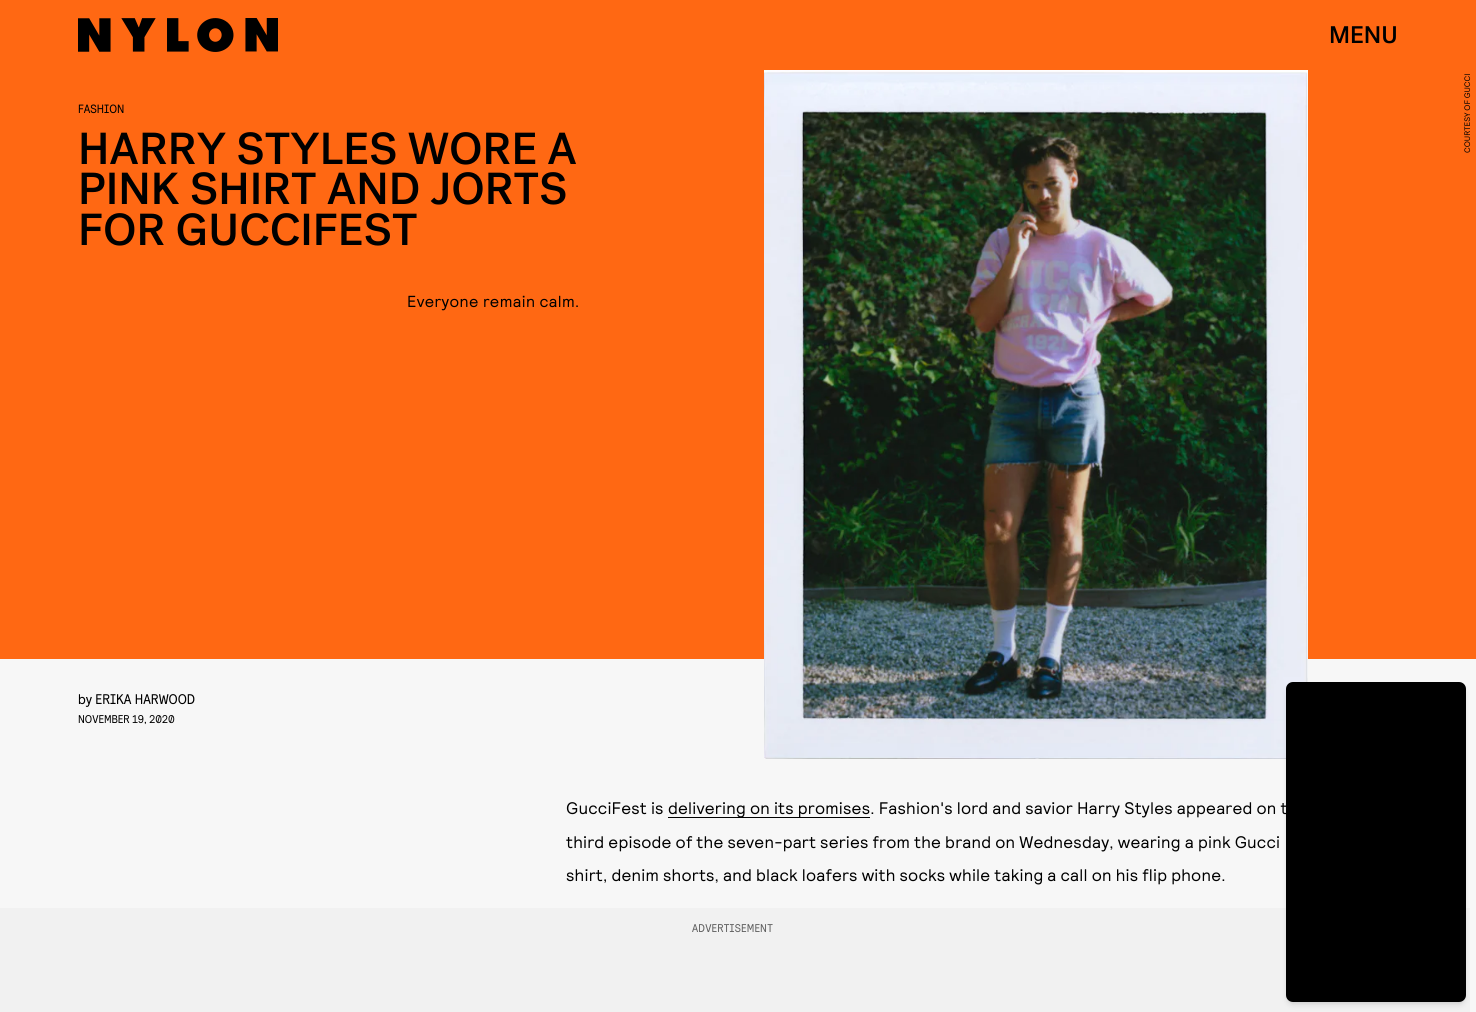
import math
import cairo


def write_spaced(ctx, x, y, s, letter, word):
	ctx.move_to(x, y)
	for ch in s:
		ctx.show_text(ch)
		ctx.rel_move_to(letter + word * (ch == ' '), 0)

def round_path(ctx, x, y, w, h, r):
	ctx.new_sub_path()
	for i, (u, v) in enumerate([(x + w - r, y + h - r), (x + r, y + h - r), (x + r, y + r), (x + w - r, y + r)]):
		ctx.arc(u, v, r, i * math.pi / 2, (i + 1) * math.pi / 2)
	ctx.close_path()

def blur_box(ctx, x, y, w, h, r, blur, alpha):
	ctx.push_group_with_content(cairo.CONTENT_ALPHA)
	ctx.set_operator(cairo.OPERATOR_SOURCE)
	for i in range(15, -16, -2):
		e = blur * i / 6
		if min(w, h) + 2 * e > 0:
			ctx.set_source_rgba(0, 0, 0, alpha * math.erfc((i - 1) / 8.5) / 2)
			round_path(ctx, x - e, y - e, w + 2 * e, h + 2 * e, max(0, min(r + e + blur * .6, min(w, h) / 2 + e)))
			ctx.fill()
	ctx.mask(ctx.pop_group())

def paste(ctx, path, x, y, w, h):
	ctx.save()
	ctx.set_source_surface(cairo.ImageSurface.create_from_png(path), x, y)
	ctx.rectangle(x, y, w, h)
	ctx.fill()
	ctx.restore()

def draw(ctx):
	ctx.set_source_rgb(0.965, 0.965, 0.965)
	ctx.paint()
	ctx.set_source_rgb(1, 0.408, 0.075)
	ctx.rectangle(0, 0, 1476, 659)
	ctx.fill()
	paste(ctx, 'media/1.png', 78, 18, 200, 34)
	ctx.select_font_face('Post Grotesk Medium')
	ctx.set_font_size(24)
	ctx.set_source_rgb(0, 0, 0)
	ctx.move_to(1329, 43)
	ctx.show_text('MENU')
	ctx.select_font_face('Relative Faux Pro')
	ctx.set_font_size(12)
	ctx.move_to(78, 113)
	ctx.show_text('FASHION')
	ctx.select_font_face('Post Grotesk Medium')
	ctx.set_font_size(44.75)
	for x, y, s in [
		(78, 164, 'HARRY STYLES WORE A'),
		(78, 204, 'PINK SHIRT AND JORTS'),
		(78, 245, 'FOR GUCCIFEST'),
	]:
		ctx.move_to(x, y)
		ctx.show_text(s)
	ctx.select_font_face('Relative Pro')
	ctx.set_font_size(16)
	write_spaced(ctx, 407, 307, 'Everyone remain calm.', 0.4, 0)
	ctx.select_font_face('Relative Faux Pro')
	ctx.set_font_size(14)
	ctx.move_to(78, 704)
	ctx.show_text('by ERIKA HARWOOD')
	ctx.set_font_size(11.25)
	ctx.move_to(78, 723)
	ctx.show_text('NOVEMBER 19, 2020')
	paste(ctx, 'media/2.png', 764, 70, 544, 689)
	ctx.select_font_face('Relative Pro')
	ctx.set_font_size(8)
	ctx.save()
	ctx.translate(1470, 153)
	ctx.rotate(-90 * math.pi / 180)
	ctx.move_to(0, 0)
	ctx.show_text('COURTESY OF GUCCI')
	ctx.restore()
	ctx.set_font_size(16.8)
	write_spaced(ctx, 566, 814, 'GucciFest is', 0.2, 0)
	ctx.rectangle(668, 817, 202, 1)
	ctx.fill()
	for x, y, s in [
		(668, 814, 'delivering on its promises. Fashion\'s lord and savior Harry Styles appeared on t'),
		(566, 848, 'third episode of the seven-part series from the brand on Wednesday, wearing a pink Gucci'),
		(566, 881, 'shirt, denim shorts, and black loafers with socks while taking a call on his flip phone.'),
	]:
		write_spaced(ctx, x, y, s, 0.2, 0)
	ctx.set_source_rgb(0.945, 0.945, 0.945)
	ctx.rectangle(0, 908, 1470, 104)
	ctx.fill()
	ctx.select_font_face('Relative Faux Pro')
	ctx.set_font_size(11.25)
	ctx.set_source_rgb(0.376, 0.376, 0.376)
	write_spaced(ctx, 692, 932, 'ADVERTISEMENT', 0.2, 0)
	ctx.set_source_rgb(0, 0, 0)
	blur_box(ctx, 1288, 686, 176, 316, 5, 2, 0.1)
	blur_box(ctx, 1287, 687, 178, 318, 6, 3, 0.1)
	ctx.set_source_rgb(0, 0, 0)
	round_path(ctx, 1286, 682, 180, 320, 7)
	ctx.fill()


surface = cairo.ImageSurface(cairo.FORMAT_RGB24, 1476, 1012)
ctx = cairo.Context(surface)
options = cairo.FontOptions()
options.set_hint_metrics(cairo.HINT_METRICS_OFF)
options.set_hint_style(cairo.HINT_STYLE_NONE)
ctx.set_font_options(options)
ctx.set_miter_limit(4)
draw(ctx)
surface.write_to_png('image.png')
